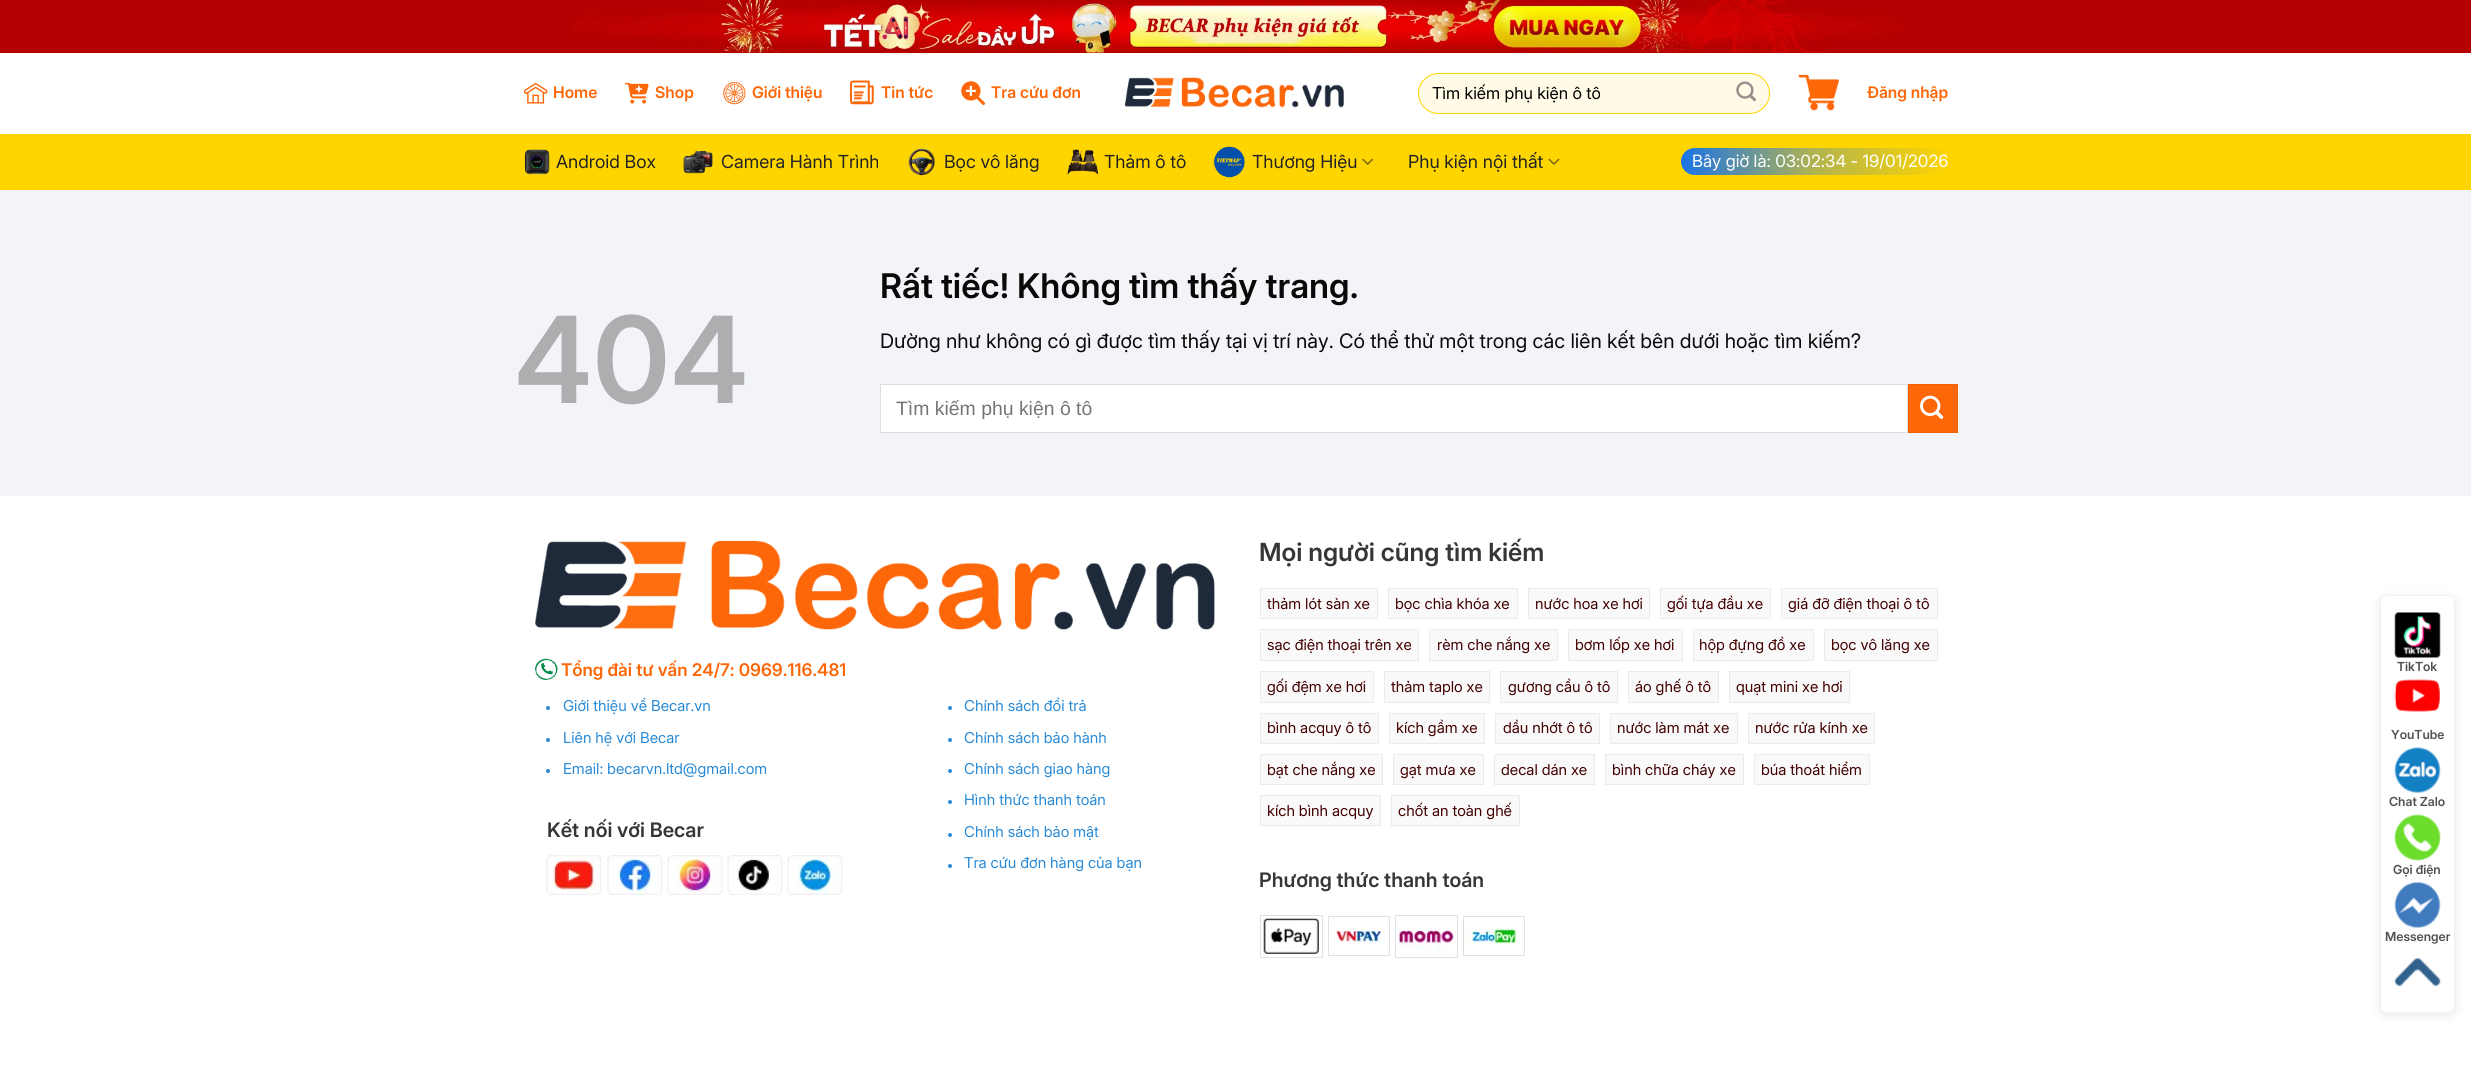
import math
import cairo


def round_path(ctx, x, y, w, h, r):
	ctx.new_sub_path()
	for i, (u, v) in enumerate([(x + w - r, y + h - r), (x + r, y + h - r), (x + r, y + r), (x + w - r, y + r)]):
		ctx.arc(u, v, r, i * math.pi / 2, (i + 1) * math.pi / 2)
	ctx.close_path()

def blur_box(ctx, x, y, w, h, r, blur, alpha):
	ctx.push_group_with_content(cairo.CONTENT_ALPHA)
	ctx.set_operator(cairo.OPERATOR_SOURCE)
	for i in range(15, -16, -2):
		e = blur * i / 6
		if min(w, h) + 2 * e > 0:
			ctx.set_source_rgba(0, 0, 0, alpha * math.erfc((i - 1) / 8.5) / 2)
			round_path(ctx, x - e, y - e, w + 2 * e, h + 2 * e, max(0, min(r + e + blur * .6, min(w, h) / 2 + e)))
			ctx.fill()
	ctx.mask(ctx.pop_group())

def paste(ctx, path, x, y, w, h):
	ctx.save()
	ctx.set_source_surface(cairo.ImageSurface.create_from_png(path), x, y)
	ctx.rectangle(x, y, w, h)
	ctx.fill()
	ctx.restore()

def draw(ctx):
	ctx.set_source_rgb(1, 1, 1)
	ctx.paint()
	ctx.set_source_rgb(0.706, 0, 0)
	ctx.rectangle(0, 0, 2471, 53)
	ctx.fill()
	paste(ctx, 'media/1.png', 572, 0, 1329, 53)
	paste(ctx, 'media/2.png', 524, 82, 24, 22)
	ctx.select_font_face('Inter SemiBold')
	ctx.set_font_size(16)
	ctx.set_source_rgb(0.992, 0.404, 0.035)
	ctx.move_to(553, 98)
	ctx.show_text('Home')
	paste(ctx, 'media/3.png', 625, 83, 24, 21)
	ctx.move_to(655, 98)
	ctx.show_text('Shop')
	paste(ctx, 'media/4.png', 723, 82, 23, 23)
	ctx.move_to(752, 98)
	ctx.show_text('Giới thiệu')
	paste(ctx, 'media/5.png', 850, 80, 24, 25)
	ctx.move_to(881, 98)
	ctx.show_text('Tin tức')
	paste(ctx, 'media/6.png', 961, 81, 24, 24)
	ctx.move_to(991, 98)
	ctx.show_text('Tra cứu đơn')
	paste(ctx, 'media/7.png', 1125, 77, 219, 31)
	ctx.set_source_rgb(1, 0.984, 0.902)
	round_path(ctx, 1418.5, 73.5, 351, 40, 20)
	ctx.fill_preserve()
	ctx.set_source_rgb(1, 0.835, 0)
	ctx.set_line_width(1)
	ctx.stroke()
	ctx.select_font_face('Inter')
	ctx.set_font_size(16.5)
	ctx.set_source_rgb(0, 0, 0)
	ctx.move_to(1432, 99)
	ctx.show_text('Tìm kiếm phụ kiện ô tô')
	paste(ctx, 'media/8.png', 1736, 81, 20, 21)
	paste(ctx, 'media/9.png', 1798, 74, 41, 37)
	ctx.select_font_face('Inter SemiBold')
	ctx.set_font_size(16)
	ctx.set_source_rgb(0.992, 0.404, 0.035)
	ctx.move_to(1867, 98)
	ctx.show_text('Đăng nhập')
	ctx.set_source_rgb(1, 0.835, 0)
	ctx.rectangle(0, 134, 2471, 56)
	ctx.fill()
	paste(ctx, 'media/10.png', 524, 149, 26, 26)
	ctx.select_font_face('Inter')
	ctx.set_font_size(18)
	ctx.set_source_rgb(0.137, 0.137, 0.137)
	ctx.move_to(556, 168)
	ctx.show_text('Android Box')
	paste(ctx, 'media/11.png', 683, 151, 30, 23)
	ctx.move_to(721, 168)
	ctx.show_text('Camera Hành Trình')
	paste(ctx, 'media/12.png', 908, 148, 27, 28)
	ctx.move_to(944, 168)
	ctx.show_text('Bọc vô lăng')
	paste(ctx, 'media/13.png', 1067, 149, 31, 26)
	ctx.move_to(1104, 168)
	ctx.show_text('Thảm ô tô')
	paste(ctx, 'media/14.png', 1213, 146, 32, 32)
	ctx.move_to(1252, 168)
	ctx.show_text('Thương Hiệu')
	paste(ctx, 'media/15.png', 1362, 158, 12, 7)
	ctx.move_to(1408, 168)
	ctx.show_text('Phụ kiện nội thất')
	paste(ctx, 'media/16.png', 1548, 158, 12, 7)
	gradient = cairo.LinearGradient(1681, 161, 1949, 161)
	gradient.add_color_stop_rgba(0, 0.102, 0.451, 0.91, 1)
	gradient.add_color_stop_rgba(0.5, 0.698, 0.706, 0.306, 1)
	gradient.add_color_stop_rgba(1, 1, 0.835, 0, 1)
	ctx.set_source(gradient)
	round_path(ctx, 1681, 148, 268, 27, 13.5)
	ctx.fill()
	ctx.set_font_size(17)
	ctx.set_source_rgb(1, 1, 1)
	ctx.move_to(1692, 167)
	ctx.show_text('Bây giờ là: 03:02:34 - 19/01/2026')
	ctx.set_source_rgb(0.949, 0.957, 0.969)
	ctx.rectangle(0, 190, 2471, 306)
	ctx.fill()
	ctx.select_font_face('Inter SemiBold')
	ctx.set_font_size(120)
	ctx.set_source_rgb(0.675, 0.682, 0.69)
	ctx.move_to(514, 403)
	ctx.show_text('404')
	ctx.set_font_size(34)
	ctx.set_source_rgb(0.039, 0.039, 0.039)
	ctx.move_to(880, 298)
	ctx.show_text('Rất tiếc! Không tìm thấy trang.')
	ctx.select_font_face('Inter')
	ctx.set_font_size(20)
	ctx.move_to(880, 348)
	ctx.show_text('Dường như không có gì được tìm thấy tại vị trí này. Có thể thử một trong các liên kết bên dưới hoặc tìm kiếm?')
	ctx.set_source_rgb(1, 1, 1)
	ctx.rectangle(880.5, 384.5, 1027, 48)
	ctx.fill_preserve()
	ctx.set_source_rgb(0.867, 0.867, 0.867)
	ctx.stroke()
	ctx.select_font_face('Liberation Sans')
	ctx.set_font_size(19.4)
	ctx.set_source_rgb(0.459, 0.459, 0.459)
	ctx.move_to(896, 415)
	ctx.show_text('Tìm kiếm phụ kiện ô tô')
	ctx.set_source_rgb(0.992, 0.404, 0.035)
	ctx.rectangle(1908.5, 384.5, 49, 48)
	ctx.fill_preserve()
	ctx.set_source_rgb(0.941, 0.384, 0.035)
	ctx.stroke()
	paste(ctx, 'media/17.png', 1920, 395, 24, 24)
	paste(ctx, 'media/18.png', 535, 540, 680, 90)
	paste(ctx, 'media/19.png', 535, 658, 23, 22)
	ctx.select_font_face('Inter SemiBold')
	ctx.set_font_size(17.5)
	ctx.set_source_rgb(0.992, 0.404, 0.035)
	ctx.move_to(561, 676)
	ctx.show_text('Tổng đài tư vấn 24/7: 0969.116.481')
	ctx.set_source_rgb(0.157, 0.541, 0.839)
	ctx.new_path()
	ctx.arc(548, 708, 2, 0, 2 * math.pi)
	ctx.fill()
	ctx.select_font_face('Inter')
	ctx.set_font_size(15)
	ctx.move_to(563, 711)
	ctx.show_text('Giới thiệu về Becar.vn')
	ctx.new_path()
	ctx.arc(548, 740, 2, 0, 2 * math.pi)
	ctx.fill()
	ctx.move_to(563, 743)
	ctx.show_text('Liên hệ với Becar')
	ctx.new_path()
	ctx.arc(548, 771, 2, 0, 2 * math.pi)
	ctx.fill()
	ctx.move_to(563, 774)
	ctx.show_text('Email: becarvn.ltd@gmail.com')
	ctx.select_font_face('Inter SemiBold')
	ctx.set_font_size(20)
	ctx.set_source_rgb(0.212, 0.212, 0.212)
	ctx.move_to(547, 837)
	ctx.show_text('Kết nối với Becar')
	paste(ctx, 'media/20.png', 546, 855, 56, 40)
	paste(ctx, 'media/21.png', 607, 855, 56, 40)
	paste(ctx, 'media/22.png', 667, 855, 56, 40)
	paste(ctx, 'media/23.png', 727, 855, 56, 40)
	paste(ctx, 'media/24.png', 787, 855, 56, 40)
	ctx.set_source_rgb(0.157, 0.541, 0.839)
	ctx.arc(950, 708, 2, 0, 2 * math.pi)
	ctx.fill()
	ctx.select_font_face('Inter')
	ctx.set_font_size(15)
	ctx.move_to(964, 711)
	ctx.show_text('Chính sách đổi trả')
	ctx.new_path()
	ctx.arc(950, 740, 2, 0, 2 * math.pi)
	ctx.fill()
	ctx.move_to(964, 743)
	ctx.show_text('Chính sách bảo hành')
	ctx.new_path()
	ctx.arc(950, 771, 2, 0, 2 * math.pi)
	ctx.fill()
	ctx.move_to(964, 774)
	ctx.show_text('Chính sách giao hàng')
	ctx.new_path()
	ctx.arc(950, 802, 2, 0, 2 * math.pi)
	ctx.fill()
	ctx.move_to(964, 805)
	ctx.show_text('Hình thức thanh toán')
	ctx.new_path()
	ctx.arc(950, 835, 2, 0, 2 * math.pi)
	ctx.fill()
	ctx.move_to(964, 837)
	ctx.show_text('Chính sách bảo mật')
	ctx.new_path()
	ctx.arc(950, 866, 2, 0, 2 * math.pi)
	ctx.fill()
	ctx.move_to(964, 868)
	ctx.show_text('Tra cứu đơn hàng của bạn')
	ctx.select_font_face('Inter SemiBold')
	ctx.set_font_size(25)
	ctx.set_source_rgb(0.212, 0.212, 0.212)
	ctx.move_to(1259, 561)
	ctx.show_text('Mọi người cũng tìm kiếm')
	ctx.set_source_rgb(0.973, 0.976, 0.98)
	ctx.rectangle(1260.5, 588.5, 117, 30)
	ctx.fill_preserve()
	ctx.set_source_rgb(0.914, 0.925, 0.937)
	ctx.stroke()
	ctx.select_font_face('Inter')
	ctx.set_font_size(15)
	ctx.set_source_rgb(0.263, 0, 0)
	ctx.move_to(1267, 609)
	ctx.show_text('thảm lót sàn xe')
	ctx.set_source_rgb(0.973, 0.976, 0.98)
	ctx.rectangle(1388.5, 588.5, 129, 30)
	ctx.fill_preserve()
	ctx.set_source_rgb(0.914, 0.925, 0.937)
	ctx.stroke()
	ctx.set_source_rgb(0.263, 0, 0)
	ctx.move_to(1395, 609)
	ctx.show_text('bọc chìa khóa xe')
	ctx.set_source_rgb(0.973, 0.976, 0.98)
	ctx.rectangle(1528.5, 588.5, 121, 30)
	ctx.fill_preserve()
	ctx.set_source_rgb(0.914, 0.925, 0.937)
	ctx.stroke()
	ctx.set_source_rgb(0.263, 0, 0)
	ctx.move_to(1535, 609)
	ctx.show_text('nước hoa xe hơi')
	ctx.set_source_rgb(0.973, 0.976, 0.98)
	ctx.rectangle(1660.5, 588.5, 110, 30)
	ctx.fill_preserve()
	ctx.set_source_rgb(0.914, 0.925, 0.937)
	ctx.stroke()
	ctx.set_source_rgb(0.263, 0, 0)
	ctx.move_to(1667, 609)
	ctx.show_text('gối tựa đầu xe')
	ctx.set_source_rgb(0.973, 0.976, 0.98)
	ctx.rectangle(1781.5, 588.5, 156, 30)
	ctx.fill_preserve()
	ctx.set_source_rgb(0.914, 0.925, 0.937)
	ctx.stroke()
	ctx.set_source_rgb(0.263, 0, 0)
	ctx.move_to(1788, 609)
	ctx.show_text('giá đỡ điện thoại ô tô')
	ctx.set_source_rgb(0.973, 0.976, 0.98)
	ctx.rectangle(1260.5, 629.5, 158, 31)
	ctx.fill_preserve()
	ctx.set_source_rgb(0.914, 0.925, 0.937)
	ctx.stroke()
	ctx.set_source_rgb(0.263, 0, 0)
	ctx.move_to(1267, 650)
	ctx.show_text('sạc điện thoại trên xe')
	ctx.set_source_rgb(0.973, 0.976, 0.98)
	ctx.rectangle(1429.5, 629.5, 128, 31)
	ctx.fill_preserve()
	ctx.set_source_rgb(0.914, 0.925, 0.937)
	ctx.stroke()
	ctx.set_source_rgb(0.263, 0, 0)
	ctx.move_to(1437, 650)
	ctx.show_text('rèm che nắng xe')
	ctx.set_source_rgb(0.973, 0.976, 0.98)
	ctx.rectangle(1568.5, 629.5, 114, 31)
	ctx.fill_preserve()
	ctx.set_source_rgb(0.914, 0.925, 0.937)
	ctx.stroke()
	ctx.set_source_rgb(0.263, 0, 0)
	ctx.move_to(1575, 650)
	ctx.show_text('bơm lốp xe hơi')
	ctx.set_source_rgb(0.973, 0.976, 0.98)
	ctx.rectangle(1693.5, 629.5, 120, 31)
	ctx.fill_preserve()
	ctx.set_source_rgb(0.914, 0.925, 0.937)
	ctx.stroke()
	ctx.set_source_rgb(0.263, 0, 0)
	ctx.move_to(1699, 650)
	ctx.show_text('hộp đựng đồ xe')
	ctx.set_source_rgb(0.973, 0.976, 0.98)
	ctx.rectangle(1824.5, 629.5, 113, 31)
	ctx.fill_preserve()
	ctx.set_source_rgb(0.914, 0.925, 0.937)
	ctx.stroke()
	ctx.set_source_rgb(0.263, 0, 0)
	ctx.move_to(1831, 650)
	ctx.show_text('bọc vô lăng xe')
	ctx.set_source_rgb(0.973, 0.976, 0.98)
	ctx.rectangle(1260.5, 671.5, 113, 31)
	ctx.fill_preserve()
	ctx.set_source_rgb(0.914, 0.925, 0.937)
	ctx.stroke()
	ctx.set_source_rgb(0.263, 0, 0)
	ctx.move_to(1267, 692)
	ctx.show_text('gối đệm xe hơi')
	ctx.set_source_rgb(0.973, 0.976, 0.98)
	ctx.rectangle(1384.5, 671.5, 105, 31)
	ctx.fill_preserve()
	ctx.set_source_rgb(0.914, 0.925, 0.937)
	ctx.stroke()
	ctx.set_source_rgb(0.263, 0, 0)
	ctx.move_to(1391, 692)
	ctx.show_text('thảm taplo xe')
	ctx.set_source_rgb(0.973, 0.976, 0.98)
	ctx.rectangle(1500.5, 671.5, 117, 31)
	ctx.fill_preserve()
	ctx.set_source_rgb(0.914, 0.925, 0.937)
	ctx.stroke()
	ctx.set_source_rgb(0.263, 0, 0)
	ctx.move_to(1508, 692)
	ctx.show_text('gương cầu ô tô')
	ctx.set_source_rgb(0.973, 0.976, 0.98)
	ctx.rectangle(1628.5, 671.5, 90, 31)
	ctx.fill_preserve()
	ctx.set_source_rgb(0.914, 0.925, 0.937)
	ctx.stroke()
	ctx.set_source_rgb(0.263, 0, 0)
	ctx.move_to(1635, 692)
	ctx.show_text('áo ghế ô tô')
	ctx.set_source_rgb(0.973, 0.976, 0.98)
	ctx.rectangle(1729.5, 671.5, 120, 31)
	ctx.fill_preserve()
	ctx.set_source_rgb(0.914, 0.925, 0.937)
	ctx.stroke()
	ctx.set_source_rgb(0.263, 0, 0)
	ctx.move_to(1736, 692)
	ctx.show_text('quạt mini xe hơi')
	ctx.set_source_rgb(0.973, 0.976, 0.98)
	ctx.rectangle(1260.5, 713.5, 118, 30)
	ctx.fill_preserve()
	ctx.set_source_rgb(0.914, 0.925, 0.937)
	ctx.stroke()
	ctx.set_source_rgb(0.263, 0, 0)
	ctx.move_to(1267, 733)
	ctx.show_text('bình acquy ô tô')
	ctx.set_source_rgb(0.973, 0.976, 0.98)
	ctx.rectangle(1389.5, 713.5, 95, 30)
	ctx.fill_preserve()
	ctx.set_source_rgb(0.914, 0.925, 0.937)
	ctx.stroke()
	ctx.set_source_rgb(0.263, 0, 0)
	ctx.move_to(1396, 733)
	ctx.show_text('kích gầm xe')
	ctx.set_source_rgb(0.973, 0.976, 0.98)
	ctx.rectangle(1495.5, 713.5, 104, 30)
	ctx.fill_preserve()
	ctx.set_source_rgb(0.914, 0.925, 0.937)
	ctx.stroke()
	ctx.set_source_rgb(0.263, 0, 0)
	ctx.move_to(1503, 733)
	ctx.show_text('dầu nhớt ô tô')
	ctx.set_source_rgb(0.973, 0.976, 0.98)
	ctx.rectangle(1610.5, 713.5, 127, 30)
	ctx.fill_preserve()
	ctx.set_source_rgb(0.914, 0.925, 0.937)
	ctx.stroke()
	ctx.set_source_rgb(0.263, 0, 0)
	ctx.move_to(1617, 733)
	ctx.show_text('nước làm mát xe')
	ctx.set_source_rgb(0.973, 0.976, 0.98)
	ctx.rectangle(1748.5, 713.5, 126, 30)
	ctx.fill_preserve()
	ctx.set_source_rgb(0.914, 0.925, 0.937)
	ctx.stroke()
	ctx.set_source_rgb(0.263, 0, 0)
	ctx.move_to(1755, 733)
	ctx.show_text('nước rửa kính xe')
	ctx.set_source_rgb(0.973, 0.976, 0.98)
	ctx.rectangle(1260.5, 754.5, 122, 30)
	ctx.fill_preserve()
	ctx.set_source_rgb(0.914, 0.925, 0.937)
	ctx.stroke()
	ctx.set_source_rgb(0.263, 0, 0)
	ctx.move_to(1267, 775)
	ctx.show_text('bạt che nắng xe')
	ctx.set_source_rgb(0.973, 0.976, 0.98)
	ctx.rectangle(1393.5, 754.5, 90, 30)
	ctx.fill_preserve()
	ctx.set_source_rgb(0.914, 0.925, 0.937)
	ctx.stroke()
	ctx.set_source_rgb(0.263, 0, 0)
	ctx.move_to(1400, 775)
	ctx.show_text('gạt mưa xe')
	ctx.set_source_rgb(0.973, 0.976, 0.98)
	ctx.rectangle(1494.5, 754.5, 100, 30)
	ctx.fill_preserve()
	ctx.set_source_rgb(0.914, 0.925, 0.937)
	ctx.stroke()
	ctx.set_source_rgb(0.263, 0, 0)
	ctx.move_to(1501, 775)
	ctx.show_text('decal dán xe')
	ctx.set_source_rgb(0.973, 0.976, 0.98)
	ctx.rectangle(1605.5, 754.5, 138, 30)
	ctx.fill_preserve()
	ctx.set_source_rgb(0.914, 0.925, 0.937)
	ctx.stroke()
	ctx.set_source_rgb(0.263, 0, 0)
	ctx.move_to(1612, 775)
	ctx.show_text('bình chữa cháy xe')
	ctx.set_source_rgb(0.973, 0.976, 0.98)
	ctx.rectangle(1754.5, 754.5, 115, 30)
	ctx.fill_preserve()
	ctx.set_source_rgb(0.914, 0.925, 0.937)
	ctx.stroke()
	ctx.set_source_rgb(0.263, 0, 0)
	ctx.move_to(1761, 775)
	ctx.show_text('búa thoát hiểm')
	ctx.set_source_rgb(0.973, 0.976, 0.98)
	ctx.rectangle(1260.5, 795.5, 120, 30)
	ctx.fill_preserve()
	ctx.set_source_rgb(0.914, 0.925, 0.937)
	ctx.stroke()
	ctx.set_source_rgb(0.263, 0, 0)
	ctx.move_to(1267, 816)
	ctx.show_text('kích bình acquy')
	ctx.set_source_rgb(0.973, 0.976, 0.98)
	ctx.rectangle(1391.5, 795.5, 128, 30)
	ctx.fill_preserve()
	ctx.set_source_rgb(0.914, 0.925, 0.937)
	ctx.stroke()
	ctx.set_source_rgb(0.263, 0, 0)
	ctx.move_to(1398, 816)
	ctx.show_text('chốt an toàn ghế')
	ctx.set_source_rgb(0, 0, 0)
	blur_box(ctx, 2380, 598, 75, 417, 6, 5, 0.1)
	ctx.set_source_rgb(1, 1, 1)
	round_path(ctx, 2380.5, 595.5, 74, 417, 5.5)
	ctx.fill_preserve()
	ctx.set_source_rgb(0.949, 0.949, 0.949)
	ctx.stroke()
	paste(ctx, 'media/25.png', 2394, 612, 47, 46)
	ctx.select_font_face('Inter SemiBold')
	ctx.set_font_size(12.5)
	ctx.set_source_rgb(0.318, 0.318, 0.318)
	ctx.move_to(2397, 671)
	ctx.show_text('TikTok')
	paste(ctx, 'media/26.png', 2394, 679, 47, 33)
	ctx.move_to(2391, 739)
	ctx.show_text('YouTube')
	paste(ctx, 'media/27.png', 2394, 747, 47, 46)
	ctx.move_to(2389, 806)
	ctx.show_text('Chat Zalo')
	paste(ctx, 'media/28.png', 2394, 814, 47, 47)
	ctx.move_to(2393, 874)
	ctx.show_text('Gọi điện')
	paste(ctx, 'media/29.png', 2394, 882, 47, 46)
	ctx.move_to(2385, 941)
	ctx.show_text('Messenger')
	paste(ctx, 'media/30.png', 2394, 957, 47, 30)
	ctx.set_font_size(20)
	ctx.set_source_rgb(0.212, 0.212, 0.212)
	ctx.move_to(1259, 887)
	ctx.show_text('Phương thức thanh toán')
	ctx.rectangle(1260.5, 915.5, 62, 42)
	ctx.set_source_rgb(0.871, 0.886, 0.902)
	ctx.stroke()
	paste(ctx, 'media/31.png', 1263, 918, 56, 36)
	ctx.rectangle(1328.5, 916.5, 61, 39)
	ctx.stroke()
	paste(ctx, 'media/32.png', 1332, 927, 53, 19)
	ctx.rectangle(1395.5, 915.5, 62, 42)
	ctx.stroke()
	paste(ctx, 'media/33.png', 1398, 926, 56, 24)
	ctx.rectangle(1463.5, 916.5, 61, 39)
	ctx.stroke()
	paste(ctx, 'media/34.png', 1466, 927, 53, 17)


surface = cairo.ImageSurface(cairo.FORMAT_RGB24, 2471, 1074)
ctx = cairo.Context(surface)
options = cairo.FontOptions()
options.set_hint_metrics(cairo.HINT_METRICS_OFF)
options.set_hint_style(cairo.HINT_STYLE_NONE)
ctx.set_font_options(options)
ctx.set_miter_limit(4)
draw(ctx)
surface.write_to_png('image.png')
